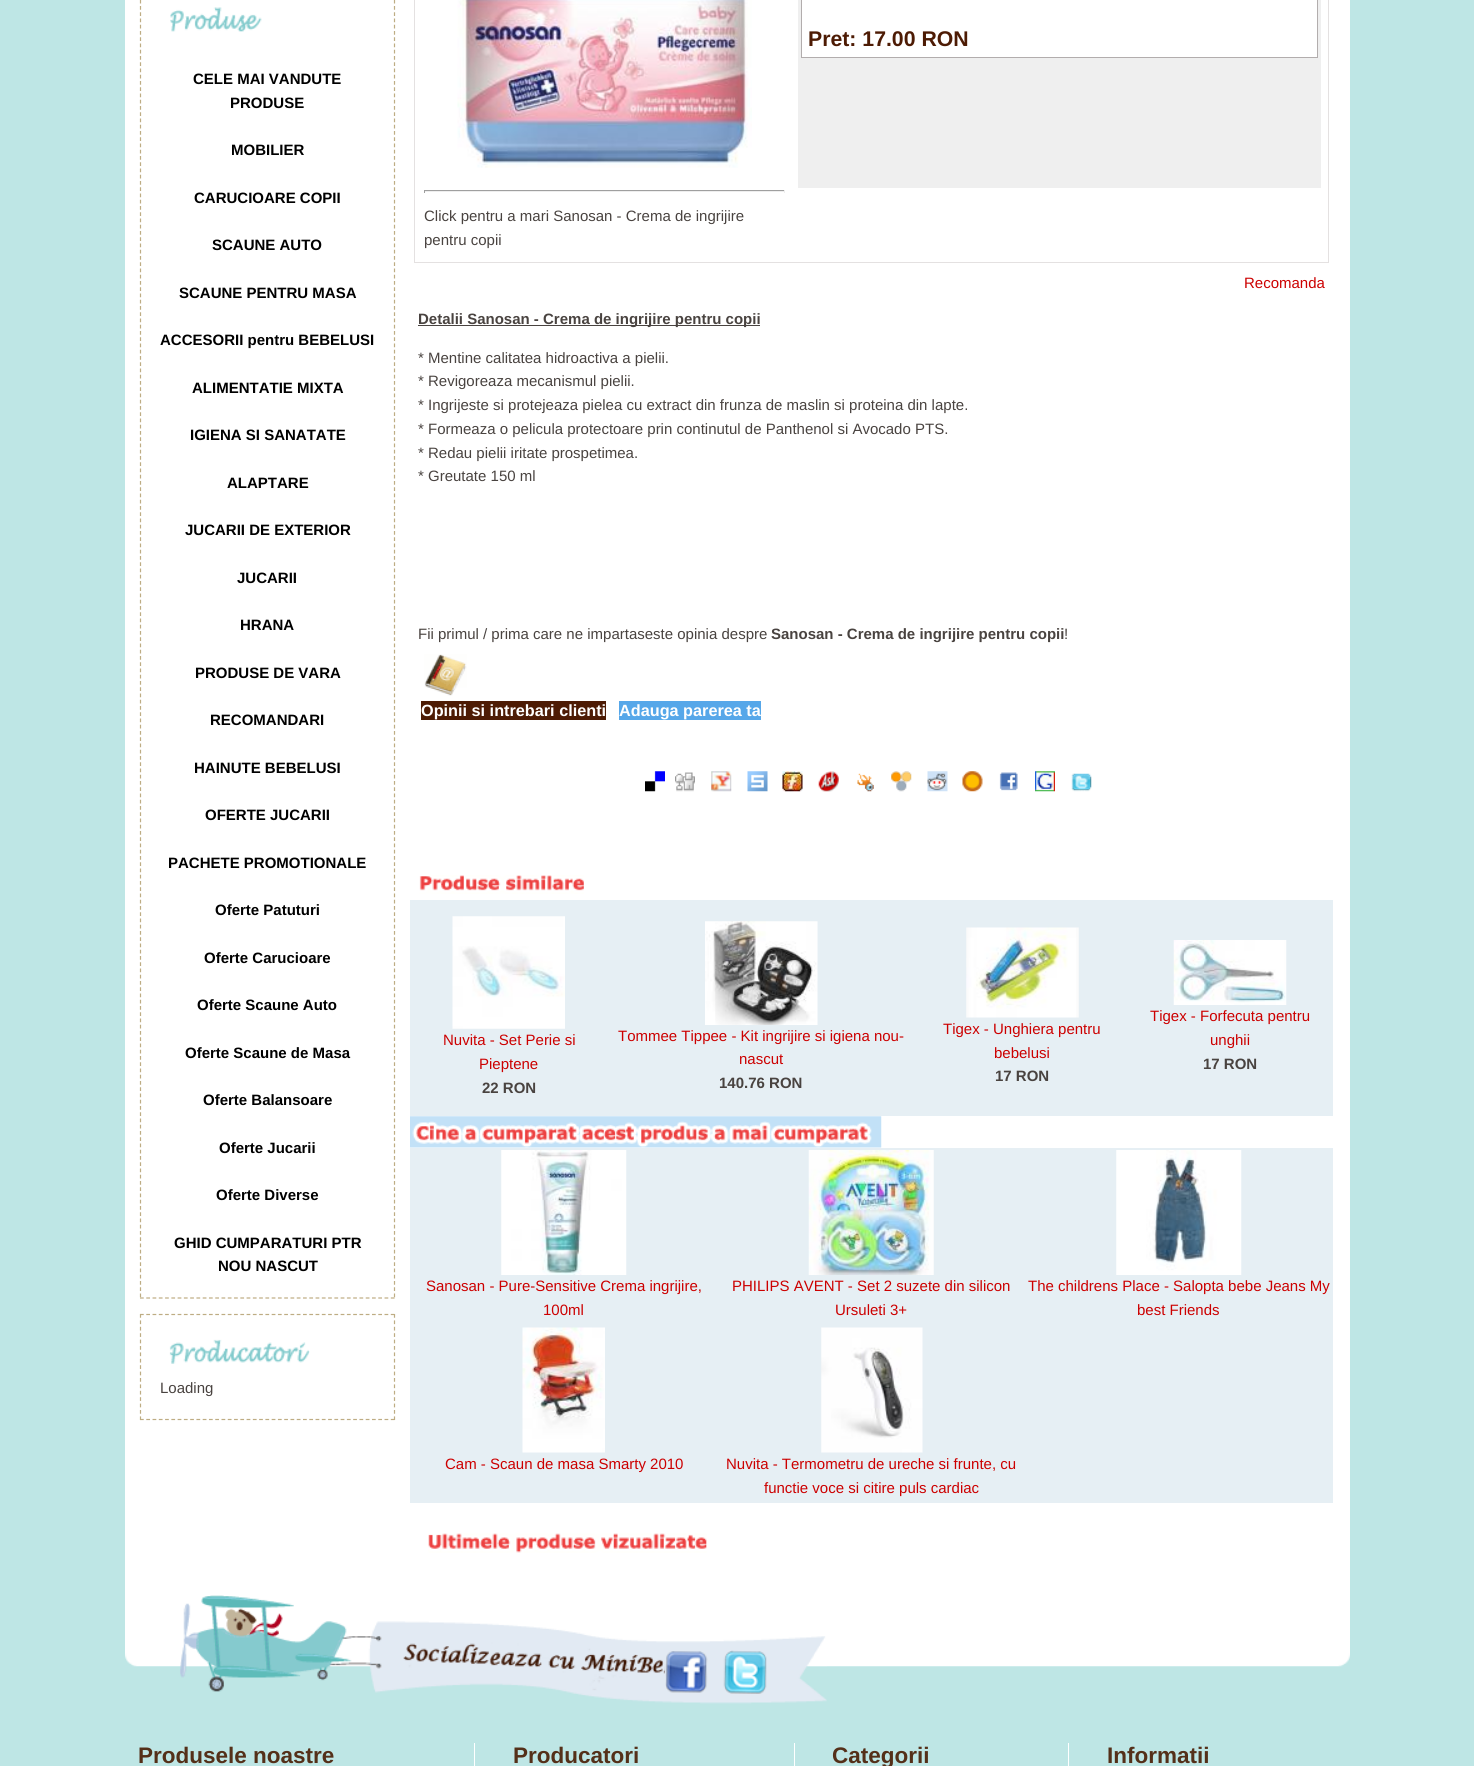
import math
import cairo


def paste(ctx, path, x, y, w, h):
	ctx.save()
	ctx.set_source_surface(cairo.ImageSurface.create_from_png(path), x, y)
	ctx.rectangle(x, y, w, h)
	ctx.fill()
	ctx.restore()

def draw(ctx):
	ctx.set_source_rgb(0.745, 0.902, 0.898)
	ctx.paint()
	ctx.set_source_rgb(1, 1, 1)
	ctx.rectangle(125, 0, 1225, 1558)
	ctx.fill()
	ctx.new_path()
	ctx.move_to(394.5, -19)
	ctx.line_to(394.5, 1299)
	ctx.set_source_rgb(0.745, 0.675, 0.514)
	ctx.set_line_width(1.2)
	ctx.set_dash([3.75, 2.5])
	ctx.stroke()
	ctx.new_path()
	ctx.move_to(140, 1298)
	ctx.line_to(395, 1298)
	ctx.set_dash([3.75, 2.52])
	ctx.stroke()
	ctx.new_path()
	ctx.move_to(140.5, -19)
	ctx.line_to(140.5, 1299)
	ctx.set_dash([3.75, 2.5])
	ctx.stroke()
	paste(ctx, 'media/1.png', 170, 7, 92, 25)
	ctx.select_font_face('Liberation Sans', cairo.FONT_SLANT_NORMAL, cairo.FONT_WEIGHT_BOLD)
	ctx.set_font_size(15)
	ctx.set_source_rgb(0, 0, 0)
	for x, y, s in [
		(193, 84, 'CELE MAI VANDUTE'),
		(230, 108, 'PRODUSE'),
		(231, 155, 'MOBILIER'),
		(194, 203, 'CARUCIOARE COPII'),
		(212, 250, 'SCAUNE AUTO'),
		(179, 298, 'SCAUNE PENTRU MASA'),
		(160, 345, 'ACCESORII pentru BEBELUSI'),
		(192, 393, 'ALIMENTATIE MIXTA'),
		(190, 440, 'IGIENA SI SANATATE'),
		(227, 488, 'ALAPTARE'),
		(185, 535, 'JUCARII DE EXTERIOR'),
		(237, 583, 'JUCARII'),
		(240, 630, 'HRANA'),
		(195, 678, 'PRODUSE DE VARA'),
		(210, 725, 'RECOMANDARI'),
		(194, 773, 'HAINUTE BEBELUSI'),
		(205, 820, 'OFERTE JUCARII'),
		(168, 868, 'PACHETE PROMOTIONALE'),
		(215, 915, 'Oferte Patuturi'),
		(204, 963, 'Oferte Carucioare'),
		(197, 1010, 'Oferte Scaune Auto'),
		(185, 1058, 'Oferte Scaune de Masa'),
		(203, 1105, 'Oferte Balansoare'),
		(219, 1153, 'Oferte Jucarii'),
		(216, 1200, 'Oferte Diverse'),
		(174, 1248, 'GHID CUMPARATURI PTR'),
		(218, 1271, 'NOU NASCUT'),
	]:
		ctx.move_to(x, y)
		ctx.show_text(s)
	ctx.new_path()
	ctx.move_to(140, 1314.5)
	ctx.line_to(395, 1314.5)
	ctx.set_source_rgb(0.745, 0.675, 0.514)
	ctx.set_dash([3.75, 2.52])
	ctx.stroke()
	ctx.new_path()
	ctx.move_to(394.5, 1314)
	ctx.line_to(394.5, 1420)
	ctx.set_dash([3.75, 2.65])
	ctx.stroke()
	ctx.new_path()
	ctx.move_to(140, 1419.5)
	ctx.line_to(395, 1419.5)
	ctx.set_dash([3.75, 2.52])
	ctx.stroke()
	ctx.new_path()
	ctx.move_to(140.5, 1314)
	ctx.line_to(140.5, 1420)
	ctx.set_dash([3.75, 2.65])
	ctx.stroke()
	paste(ctx, 'media/2.png', 169, 1339, 141, 25)
	ctx.select_font_face('Liberation Sans')
	ctx.set_source_rgb(0.286, 0.263, 0.251)
	ctx.move_to(160, 1393)
	ctx.show_text('Loading')
	ctx.rectangle(414.5, -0.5, 914, 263)
	ctx.set_source_rgb(0.894, 0.882, 0.882)
	ctx.set_line_width(1)
	ctx.set_dash([])
	ctx.stroke()
	ctx.set_source_rgb(0.937, 0.937, 0.937)
	ctx.rectangle(798, 0, 523, 188)
	ctx.fill()
	ctx.set_source_rgb(1, 1, 1)
	ctx.rectangle(801.5, -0.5, 516, 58)
	ctx.fill_preserve()
	ctx.set_source_rgb(0.698, 0.678, 0.678)
	ctx.stroke()
	ctx.select_font_face('Liberation Sans', cairo.FONT_SLANT_NORMAL, cairo.FONT_WEIGHT_BOLD)
	ctx.set_font_size(21.25)
	ctx.set_source_rgb(0.302, 0.106, 0.016)
	ctx.move_to(808, 46)
	ctx.show_text('Pret: 17.00 RON')
	paste(ctx, 'media/3.png', 457, 0, 295, 168)
	ctx.set_source_rgb(0.624, 0.624, 0.624)
	ctx.rectangle(424, 190, 361, 1)
	ctx.fill()
	ctx.set_source_rgb(0.933, 0.933, 0.933)
	ctx.rectangle(784, 190, 1, 3)
	ctx.rectangle(424, 191, 361, 1)
	ctx.fill()
	ctx.set_source_rgb(0.624, 0.624, 0.624)
	ctx.rectangle(424, 190, 1, 3)
	ctx.fill()
	ctx.select_font_face('Liberation Sans')
	ctx.set_font_size(15)
	ctx.set_source_rgb(0.286, 0.263, 0.251)
	ctx.move_to(424, 221)
	ctx.show_text('Click pentru a mari Sanosan - Crema de ingrijire')
	ctx.move_to(424, 245)
	ctx.show_text('pentru copii')
	ctx.set_source_rgb(0.8, 0, 0)
	ctx.move_to(1244, 288)
	ctx.show_text('Recomanda')
	ctx.set_source_rgb(0.286, 0.263, 0.251)
	ctx.rectangle(418, 325, 342, 1)
	ctx.fill()
	ctx.select_font_face('Liberation Sans', cairo.FONT_SLANT_NORMAL, cairo.FONT_WEIGHT_BOLD)
	ctx.move_to(418, 324)
	ctx.show_text('Detalii Sanosan - Crema de ingrijire pentru copii')
	ctx.select_font_face('Liberation Sans')
	for x, y, s in [
		(418, 363, '* Mentine calitatea hidroactiva a pielii.'),
		(418, 386, '* Revigoreaza mecanismul pielii.'),
		(418, 410, '* Ingrijeste si protejeaza pielea cu extract din frunza de maslin si proteina din lapte.'),
		(418, 434, '* Formeaza o pelicula protectoare prin continutul de Panthenol si Avocado PTS.'),
		(418, 458, '* Redau pielii iritate prospetimea.'),
		(418, 481, '* Greutate 150 ml'),
		(418, 639, 'Fii primul / prima care ne impartaseste opinia despre'),
	]:
		ctx.move_to(x, y)
		ctx.show_text(s)
	ctx.select_font_face('Liberation Sans', cairo.FONT_SLANT_NORMAL, cairo.FONT_WEIGHT_BOLD)
	ctx.move_to(771, 639)
	ctx.show_text('Sanosan - Crema de ingrijire pentru copii')
	ctx.select_font_face('Liberation Sans')
	ctx.move_to(1064, 639)
	ctx.show_text('!')
	paste(ctx, 'media/4.png', 424, 654, 43, 42)
	ctx.set_source_rgb(0.302, 0.106, 0.016)
	ctx.rectangle(421, 701, 185, 19)
	ctx.fill()
	ctx.select_font_face('Liberation Sans', cairo.FONT_SLANT_NORMAL, cairo.FONT_WEIGHT_BOLD)
	ctx.set_font_size(16.25)
	ctx.set_source_rgb(1, 1, 1)
	ctx.move_to(421, 716)
	ctx.show_text('Opinii si intrebari clienti')
	ctx.set_source_rgb(0.337, 0.655, 0.914)
	ctx.rectangle(619, 701, 142, 19)
	ctx.fill()
	ctx.set_source_rgb(1, 1, 1)
	ctx.move_to(619, 716)
	ctx.show_text('Adauga parerea ta')
	paste(ctx, 'media/5.png', 645, 771, 20, 21)
	paste(ctx, 'media/6.png', 675, 772, 20, 20)
	paste(ctx, 'media/7.png', 711, 771, 21, 21)
	paste(ctx, 'media/8.png', 747, 771, 21, 21)
	paste(ctx, 'media/9.png', 782, 771, 21, 21)
	paste(ctx, 'media/10.png', 818, 771, 21, 21)
	paste(ctx, 'media/11.png', 857, 773, 17, 19)
	paste(ctx, 'media/12.png', 891, 771, 21, 21)
	paste(ctx, 'media/13.png', 927, 771, 21, 21)
	paste(ctx, 'media/14.png', 962, 771, 21, 21)
	paste(ctx, 'media/15.png', 999, 772, 19, 19)
	paste(ctx, 'media/16.png', 1035, 771, 20, 21)
	paste(ctx, 'media/17.png', 1071, 773, 21, 19)
	paste(ctx, 'media/18.png', 419, 875, 165, 19)
	ctx.set_source_rgb(0.902, 0.937, 0.957)
	ctx.rectangle(410, 900, 923, 216)
	ctx.fill()
	paste(ctx, 'media/19.png', 452, 916, 113, 113)
	ctx.select_font_face('Liberation Sans')
	ctx.set_font_size(15)
	ctx.set_source_rgb(0.8, 0, 0)
	ctx.move_to(443, 1045)
	ctx.show_text('Nuvita - Set Perie si')
	ctx.move_to(479, 1069)
	ctx.show_text('Pieptene')
	ctx.select_font_face('Liberation Sans', cairo.FONT_SLANT_NORMAL, cairo.FONT_WEIGHT_BOLD)
	ctx.set_source_rgb(0.286, 0.263, 0.251)
	ctx.move_to(482, 1093)
	ctx.show_text('22 RON')
	paste(ctx, 'media/20.png', 705, 921, 113, 104)
	ctx.select_font_face('Liberation Sans')
	ctx.set_source_rgb(0.8, 0, 0)
	ctx.move_to(618, 1041)
	ctx.show_text('Tommee Tippee - Kit ingrijire si igiena nou-')
	ctx.move_to(739, 1064)
	ctx.show_text('nascut')
	ctx.select_font_face('Liberation Sans', cairo.FONT_SLANT_NORMAL, cairo.FONT_WEIGHT_BOLD)
	ctx.set_source_rgb(0.286, 0.263, 0.251)
	ctx.move_to(719, 1088)
	ctx.show_text('140.76 RON')
	paste(ctx, 'media/21.png', 966, 927, 113, 91)
	ctx.select_font_face('Liberation Sans')
	ctx.set_source_rgb(0.8, 0, 0)
	ctx.move_to(943, 1034)
	ctx.show_text('Tigex - Unghiera pentru')
	ctx.move_to(994, 1058)
	ctx.show_text('bebelusi')
	ctx.select_font_face('Liberation Sans', cairo.FONT_SLANT_NORMAL, cairo.FONT_WEIGHT_BOLD)
	ctx.set_source_rgb(0.286, 0.263, 0.251)
	ctx.move_to(995, 1081)
	ctx.show_text('17 RON')
	paste(ctx, 'media/22.png', 1173, 940, 114, 65)
	ctx.select_font_face('Liberation Sans')
	ctx.set_source_rgb(0.8, 0, 0)
	ctx.move_to(1150, 1021)
	ctx.show_text('Tigex - Forfecuta pentru')
	ctx.move_to(1210, 1045)
	ctx.show_text('unghii')
	ctx.select_font_face('Liberation Sans', cairo.FONT_SLANT_NORMAL, cairo.FONT_WEIGHT_BOLD)
	ctx.set_source_rgb(0.286, 0.263, 0.251)
	ctx.move_to(1203, 1069)
	ctx.show_text('17 RON')
	paste(ctx, 'media/23.png', 410, 1116, 472, 32)
	ctx.set_source_rgb(0.902, 0.937, 0.957)
	ctx.rectangle(410, 1148, 923, 355)
	ctx.fill()
	paste(ctx, 'media/24.png', 501, 1150, 126, 125)
	ctx.select_font_face('Liberation Sans')
	ctx.set_source_rgb(0.8, 0, 0)
	ctx.move_to(426, 1291)
	ctx.show_text('Sanosan - Pure-Sensitive Crema ingrijire,')
	ctx.move_to(543, 1315)
	ctx.show_text('100ml')
	paste(ctx, 'media/25.png', 808, 1150, 126, 125)
	ctx.move_to(732, 1291)
	ctx.show_text('PHILIPS AVENT - Set 2 suzete din silicon')
	ctx.move_to(835, 1315)
	ctx.show_text('Ursuleti 3+')
	paste(ctx, 'media/26.png', 1116, 1150, 126, 125)
	ctx.move_to(1028, 1291)
	ctx.show_text('The childrens Place - Salopta bebe Jeans My')
	ctx.move_to(1137, 1315)
	ctx.show_text('best Friends')
	paste(ctx, 'media/27.png', 522, 1327, 83, 126)
	ctx.move_to(445, 1469)
	ctx.show_text('Cam - Scaun de masa Smarty 2010')
	paste(ctx, 'media/28.png', 821, 1327, 102, 126)
	ctx.move_to(726, 1469)
	ctx.show_text('Nuvita - Termometru de ureche si frunte, cu')
	ctx.move_to(764, 1493)
	ctx.show_text('functie voce si citire puls cardiac')
	paste(ctx, 'media/29.png', 428, 1533, 279, 20)
	paste(ctx, 'media/30.png', 125, 1558, 1225, 109)
	paste(ctx, 'media/31.png', 180, 1595, 647, 109)
	paste(ctx, 'media/32.png', 665, 1651, 43, 42)
	paste(ctx, 'media/33.png', 723, 1650, 44, 44)
	ctx.select_font_face('Liberation Sans', cairo.FONT_SLANT_NORMAL, cairo.FONT_WEIGHT_BOLD)
	ctx.set_font_size(22.5)
	ctx.set_source_rgb(0.329, 0.188, 0.098)
	ctx.move_to(138, 1763)
	ctx.show_text('Produsele noastre')
	ctx.set_source_rgb(1, 1, 1)
	ctx.rectangle(474, 1743, 1, 23)
	ctx.fill()
	ctx.set_source_rgb(0.329, 0.188, 0.098)
	ctx.move_to(513, 1763)
	ctx.show_text('Producatori')
	ctx.set_source_rgb(1, 1, 1)
	ctx.rectangle(794, 1743, 1, 23)
	ctx.fill()
	ctx.set_source_rgb(0.329, 0.188, 0.098)
	ctx.move_to(832, 1763)
	ctx.show_text('Categorii')
	ctx.set_source_rgb(1, 1, 1)
	ctx.rectangle(1068, 1743, 1, 23)
	ctx.fill()
	ctx.set_source_rgb(0.329, 0.188, 0.098)
	ctx.move_to(1107, 1763)
	ctx.show_text('Informatii')


surface = cairo.ImageSurface(cairo.FORMAT_RGB24, 1474, 1766)
ctx = cairo.Context(surface)
options = cairo.FontOptions()
options.set_hint_metrics(cairo.HINT_METRICS_OFF)
options.set_hint_style(cairo.HINT_STYLE_NONE)
ctx.set_font_options(options)
ctx.set_miter_limit(4)
draw(ctx)
surface.write_to_png('image.png')
